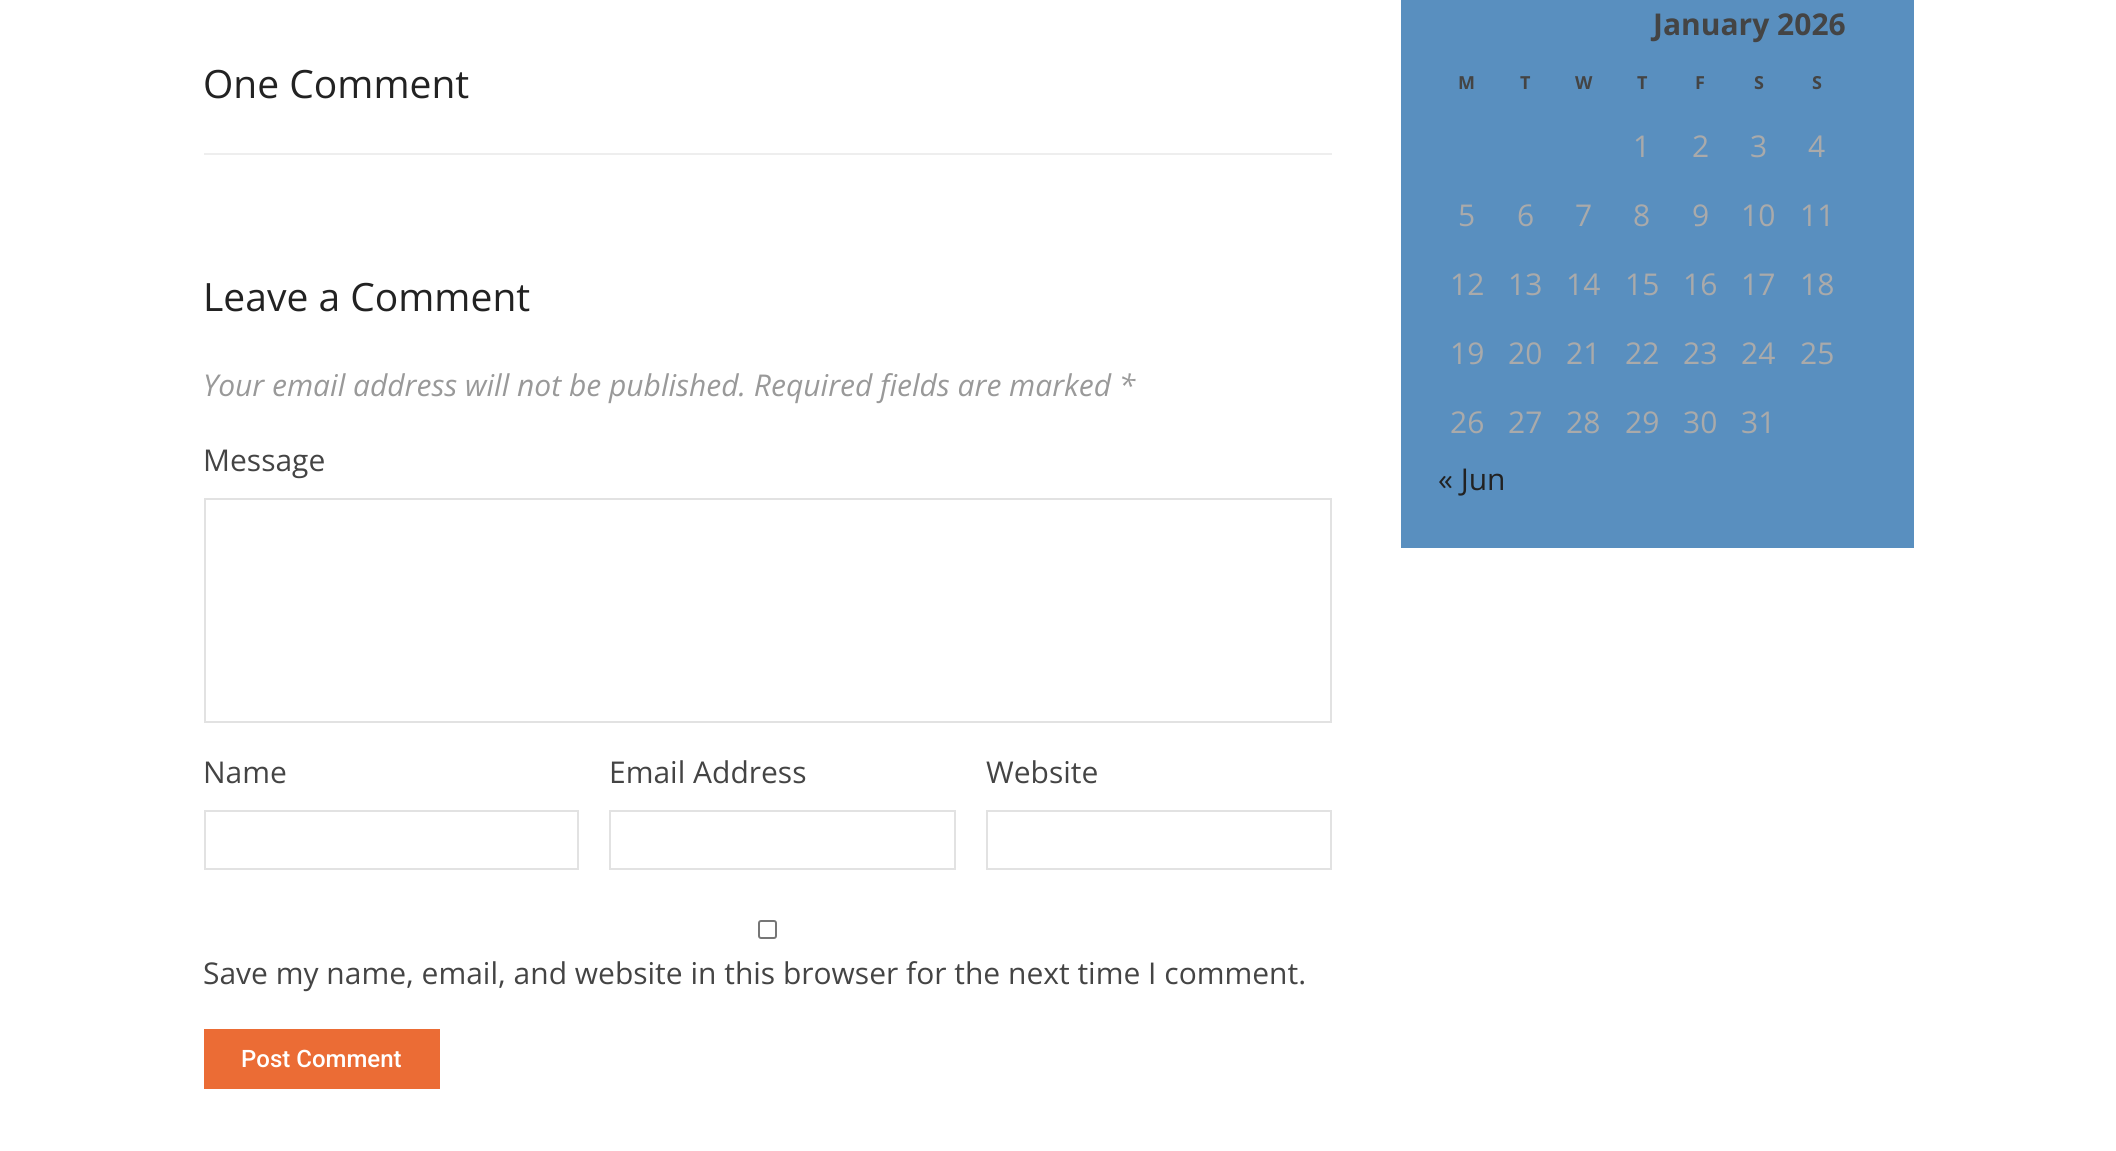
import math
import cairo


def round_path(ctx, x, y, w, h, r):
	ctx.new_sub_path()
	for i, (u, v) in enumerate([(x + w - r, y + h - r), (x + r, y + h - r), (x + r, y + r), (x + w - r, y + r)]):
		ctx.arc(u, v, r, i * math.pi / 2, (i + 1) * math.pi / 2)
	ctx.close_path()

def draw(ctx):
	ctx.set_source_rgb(1, 1, 1)
	ctx.paint()
	ctx.set_source_rgb(0.933, 0.933, 0.933)
	ctx.rectangle(204, 153, 1128, 2)
	ctx.fill()
	ctx.select_font_face('Open Sans')
	ctx.set_font_size(39)
	ctx.set_source_rgb(0.133, 0.133, 0.133)
	ctx.move_to(203, 98)
	ctx.show_text('One Comment')
	ctx.move_to(203, 311)
	ctx.show_text('Leave a Comment')
	ctx.select_font_face('Open Sans', cairo.FONT_SLANT_ITALIC)
	ctx.set_font_size(30)
	ctx.set_source_rgb(0.6, 0.6, 0.6)
	ctx.move_to(203, 396)
	ctx.show_text('Your email address will not be published. Required fields are marked *')
	ctx.select_font_face('Open Sans')
	ctx.set_source_rgb(0.267, 0.267, 0.267)
	ctx.move_to(203, 471)
	ctx.show_text('Message')
	ctx.rectangle(205, 499, 1126, 223)
	ctx.set_source_rgb(0.886, 0.886, 0.886)
	ctx.stroke()
	ctx.set_source_rgb(0.267, 0.267, 0.267)
	ctx.move_to(203, 783)
	ctx.show_text('Name')
	ctx.rectangle(205, 811, 373, 58)
	ctx.set_source_rgb(0.886, 0.886, 0.886)
	ctx.stroke()
	ctx.set_source_rgb(0.267, 0.267, 0.267)
	ctx.move_to(609, 783)
	ctx.show_text('Email Address')
	ctx.rectangle(610, 811, 345, 58)
	ctx.set_source_rgb(0.886, 0.886, 0.886)
	ctx.stroke()
	ctx.set_source_rgb(0.267, 0.267, 0.267)
	ctx.move_to(986, 783)
	ctx.show_text('Website')
	ctx.rectangle(987, 811, 344, 58)
	ctx.set_source_rgb(0.886, 0.886, 0.886)
	ctx.stroke()
	round_path(ctx, 759, 921, 17, 17, 2)
	ctx.set_source_rgb(0.463, 0.463, 0.463)
	ctx.stroke()
	ctx.set_source_rgb(0.267, 0.267, 0.267)
	ctx.move_to(203, 984)
	ctx.show_text('Save my name, email, and website in this browser for the next time I comment.')
	ctx.set_source_rgb(0.918, 0.424, 0.208)
	ctx.rectangle(204, 1029, 236, 60)
	ctx.fill()
	ctx.select_font_face('Roboto Medium')
	ctx.set_font_size(24)
	ctx.set_source_rgb(1, 1, 1)
	ctx.move_to(241, 1067)
	ctx.show_text('Post Comment')
	ctx.set_source_rgb(0.349, 0.561, 0.749)
	ctx.rectangle(1401, 0, 513, 548)
	ctx.fill()
	ctx.select_font_face('Open Sans', cairo.FONT_SLANT_NORMAL, cairo.FONT_WEIGHT_BOLD)
	ctx.set_font_size(30)
	ctx.set_source_rgb(0.267, 0.267, 0.267)
	ctx.move_to(1653, 35)
	ctx.show_text('January 2026')
	ctx.set_font_size(18)
	for x, y, s in [
		(1458, 89, 'M'),
		(1520, 89, 'T'),
		(1575, 89, 'W'),
		(1637, 89, 'T'),
		(1695, 89, 'F'),
		(1754, 89, 'S'),
		(1812, 89, 'S'),
	]:
		ctx.move_to(x, y)
		ctx.show_text(s)
	ctx.select_font_face('Open Sans')
	ctx.set_font_size(30)
	ctx.set_source_rgb(0.667, 0.667, 0.667)
	for x, y, s in [
		(1633, 157, '1'),
		(1692, 157, '2'),
		(1750, 157, '3'),
		(1808, 157, '4'),
		(1458, 226, '5'),
		(1517, 226, '6'),
		(1575, 226, '7'),
		(1633, 226, '8'),
		(1692, 226, '9'),
		(1741, 226, '10'),
		(1800, 226, '11'),
		(1450, 295, '12'),
		(1508, 295, '13'),
		(1566, 295, '14'),
		(1625, 295, '15'),
		(1683, 295, '16'),
		(1741, 295, '17'),
		(1800, 295, '18'),
		(1450, 364, '19'),
		(1508, 364, '20'),
		(1566, 364, '21'),
		(1625, 364, '22'),
		(1683, 364, '23'),
		(1741, 364, '24'),
		(1800, 364, '25'),
		(1450, 433, '26'),
		(1508, 433, '27'),
		(1566, 433, '28'),
		(1625, 433, '29'),
		(1683, 433, '30'),
		(1741, 433, '31'),
	]:
		ctx.move_to(x, y)
		ctx.show_text(s)
	ctx.set_source_rgb(0.133, 0.133, 0.133)
	ctx.move_to(1438, 490)
	ctx.show_text('« Jun')


surface = cairo.ImageSurface(cairo.FORMAT_RGB24, 2116, 1151)
ctx = cairo.Context(surface)
options = cairo.FontOptions()
options.set_hint_metrics(cairo.HINT_METRICS_OFF)
options.set_hint_style(cairo.HINT_STYLE_NONE)
ctx.set_font_options(options)
ctx.set_miter_limit(4)
draw(ctx)
surface.write_to_png('image.png')
